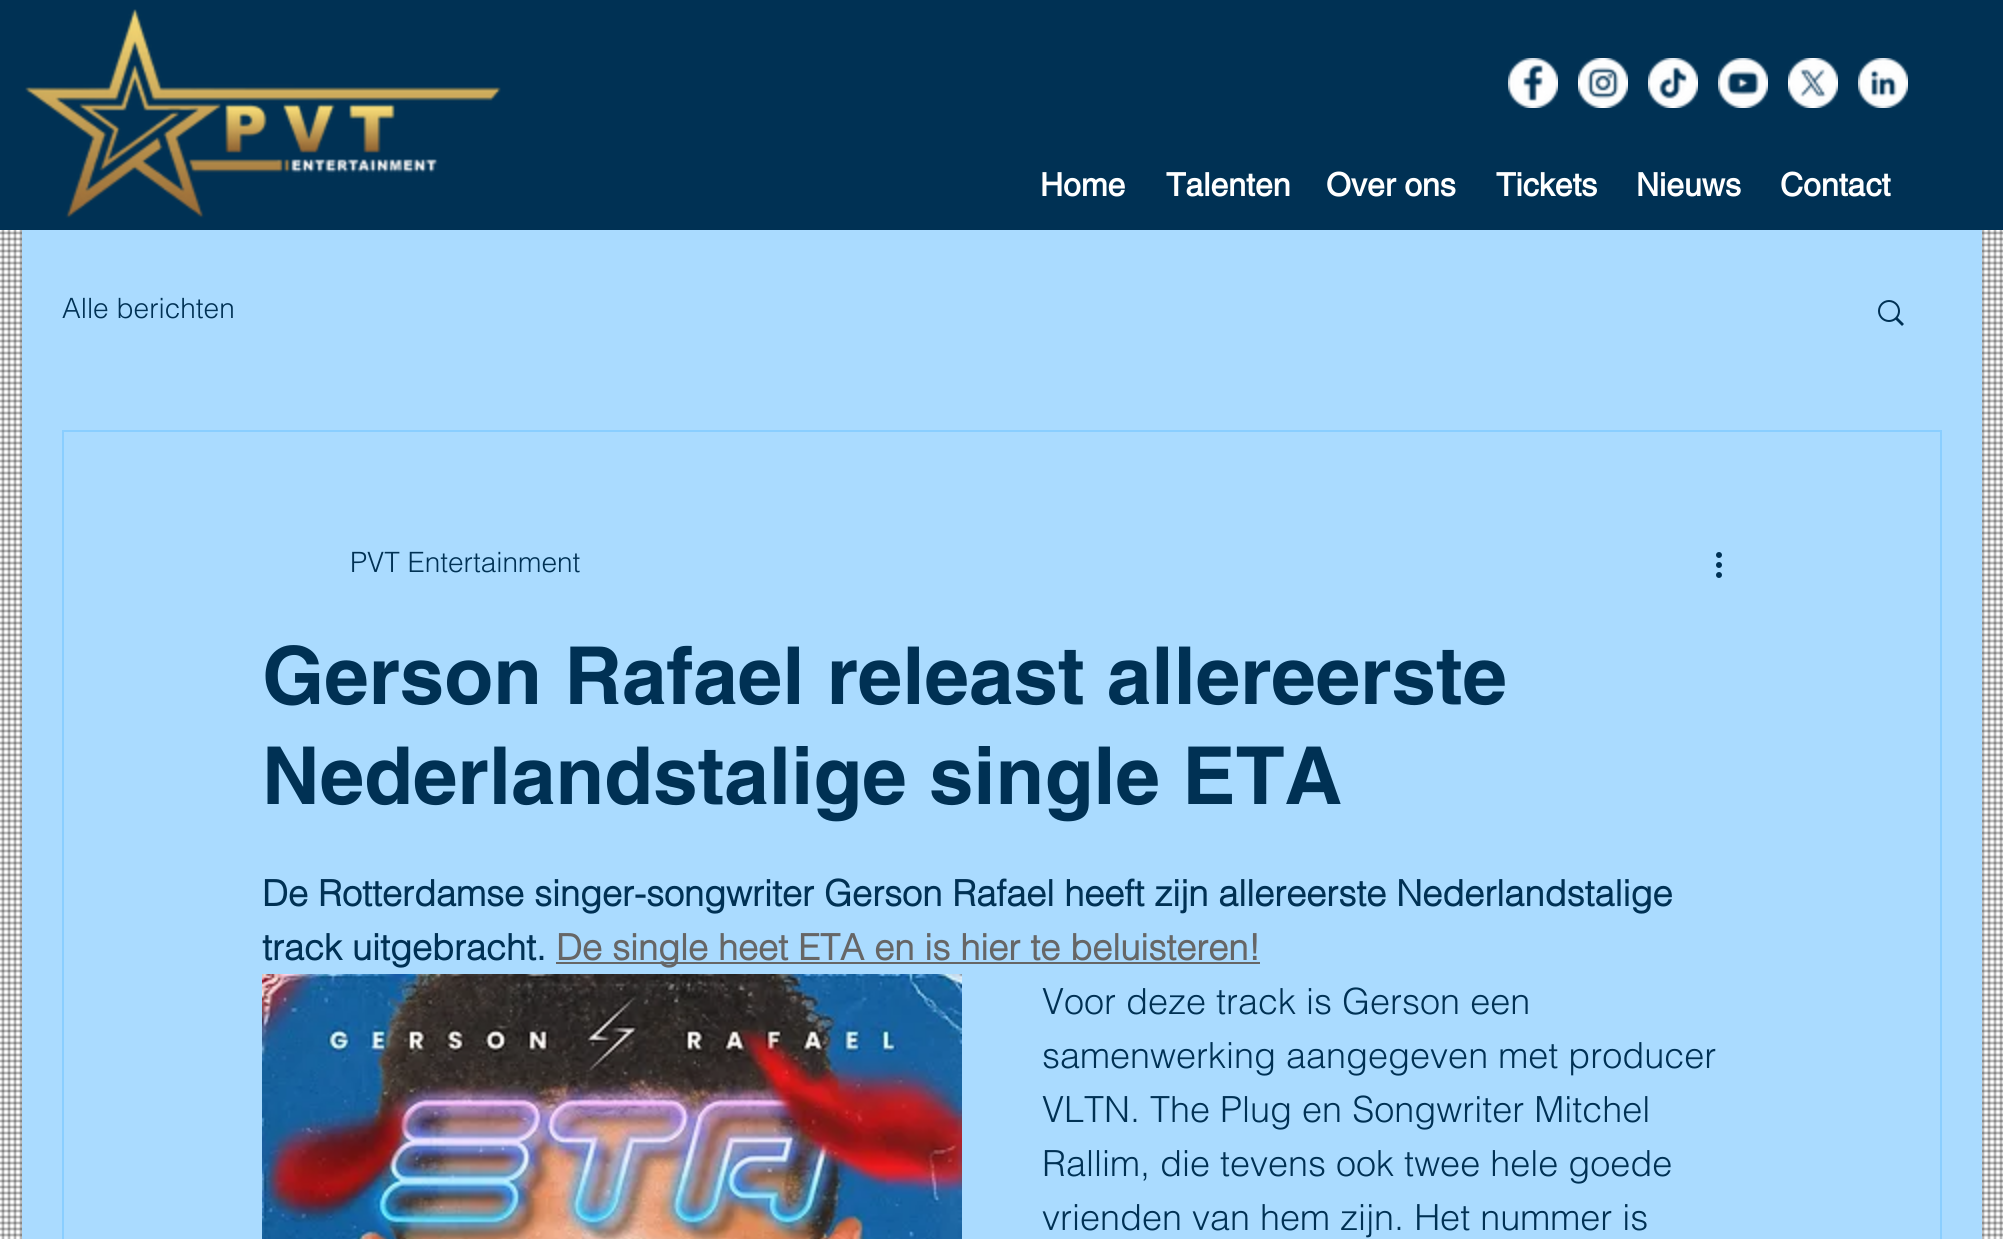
import math
import cairo


def paste(ctx, path, x, y, w, h):
	ctx.save()
	ctx.set_source_surface(cairo.ImageSurface.create_from_png(path), x, y)
	ctx.rectangle(x, y, w, h)
	ctx.fill()
	ctx.restore()

def draw(ctx):
	ctx.set_source_rgb(1, 1, 1)
	ctx.paint()
	ctx.set_source_rgb(0, 0.192, 0.329)
	ctx.rectangle(0, 0, 2003, 230)
	ctx.fill()
	paste(ctx, 'media/1.png', 25, 9, 476, 209)
	paste(ctx, 'media/2.png', 1508, 58, 50, 50)
	paste(ctx, 'media/3.png', 1578, 58, 50, 50)
	paste(ctx, 'media/4.png', 1648, 58, 50, 50)
	paste(ctx, 'media/5.png', 1718, 58, 50, 50)
	paste(ctx, 'media/6.png', 1788, 58, 50, 50)
	paste(ctx, 'media/7.png', 1858, 58, 50, 50)
	ctx.select_font_face('helvetica', cairo.FONT_SLANT_NORMAL, cairo.FONT_WEIGHT_BOLD)
	ctx.set_font_size(32)
	ctx.set_source_rgb(1, 1, 1)
	for x, y, s in [
		(1040, 196, 'Home'),
		(1166, 196, 'Talenten'),
		(1326, 196, 'Over ons'),
		(1496, 196, 'Tickets'),
		(1636, 196, 'Nieuws'),
		(1780, 196, 'Contact'),
	]:
		ctx.move_to(x, y)
		ctx.show_text(s)
	paste(ctx, 'media/11.png', 0, 230, 2003, 1009)
	ctx.set_source_rgb(0.667, 0.859, 1)
	ctx.rectangle(22, 230, 1960, 1009)
	ctx.fill()
	ctx.select_font_face('helvetica Light')
	ctx.set_font_size(28)
	ctx.set_source_rgb(0, 0.192, 0.329)
	ctx.move_to(62, 318)
	ctx.show_text('Alle berichten')
	paste(ctx, 'media/8.png', 1878, 300, 26, 26)
	ctx.rectangle(63, 431, 1878, 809)
	ctx.set_source_rgb(0.541, 0.808, 1)
	ctx.stroke()
	ctx.set_source_rgb(0, 0.192, 0.329)
	ctx.move_to(350, 572)
	ctx.show_text('PVT Entertainment')
	paste(ctx, 'media/9.png', 1716, 552, 6, 26)
	ctx.select_font_face('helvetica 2', cairo.FONT_SLANT_NORMAL, cairo.FONT_WEIGHT_BOLD)
	ctx.set_font_size(80)
	ctx.move_to(262, 704)
	ctx.show_text('Gerson Rafael releast allereerste')
	ctx.move_to(262, 804)
	ctx.show_text('Nederlandstalige single ETA')
	ctx.select_font_face('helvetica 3', cairo.FONT_SLANT_NORMAL, cairo.FONT_WEIGHT_BOLD)
	ctx.set_font_size(36)
	ctx.move_to(262, 906)
	ctx.show_text('De Rotterdamse singer-songwriter Gerson Rafael heeft zijn allereerste Nederlandstalige')
	ctx.move_to(262, 960)
	ctx.show_text('track uitgebracht.')
	ctx.set_source_rgb(0.4, 0.4, 0.4)
	ctx.rectangle(556, 962, 704, 2)
	ctx.fill()
	ctx.move_to(556, 960)
	ctx.show_text('De single heet ETA en is hier te beluisteren!')
	paste(ctx, 'media/10.png', 262, 974, 700, 265)
	ctx.select_font_face('helvetica Light')
	ctx.set_source_rgb(0, 0.192, 0.329)
	for x, y, s in [
		(1042, 1014, 'Voor deze track is Gerson een'),
		(1042, 1068, 'samenwerking aangegeven met producer'),
		(1042, 1122, 'VLTN. The Plug en Songwriter Mitchel'),
		(1042, 1176, 'Rallim, die tevens ook twee hele goede'),
		(1042, 1230, 'vrienden van hem zijn. Het nummer is'),
	]:
		ctx.move_to(x, y)
		ctx.show_text(s)


surface = cairo.ImageSurface(cairo.FORMAT_RGB24, 2003, 1239)
ctx = cairo.Context(surface)
options = cairo.FontOptions()
options.set_hint_metrics(cairo.HINT_METRICS_OFF)
options.set_hint_style(cairo.HINT_STYLE_NONE)
ctx.set_font_options(options)
ctx.set_miter_limit(4)
draw(ctx)
surface.write_to_png('image.png')
